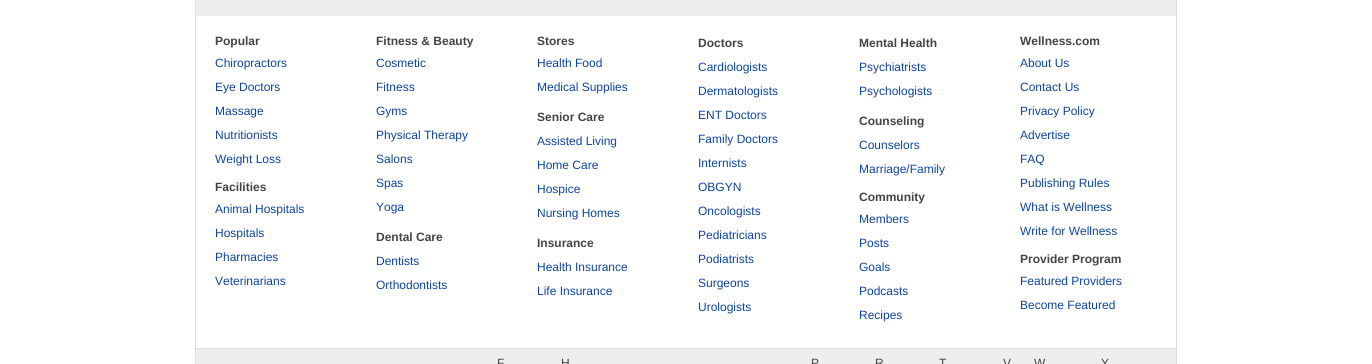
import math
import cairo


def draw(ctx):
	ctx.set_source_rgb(1, 1, 1)
	ctx.paint()
	ctx.set_source_rgb(0.933, 0.933, 0.933)
	ctx.rectangle(195.5, -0.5, 981, 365)
	ctx.fill_preserve()
	ctx.set_source_rgb(0.871, 0.871, 0.871)
	ctx.set_line_width(1)
	ctx.stroke()
	ctx.set_source_rgb(1, 1, 1)
	ctx.rectangle(196, 16, 980, 332)
	ctx.fill()
	ctx.select_font_face('Liberation Sans', cairo.FONT_SLANT_NORMAL, cairo.FONT_WEIGHT_BOLD)
	ctx.set_font_size(12)
	ctx.set_source_rgb(0.267, 0.267, 0.267)
	ctx.move_to(215, 45)
	ctx.show_text('Popular')
	ctx.select_font_face('Liberation Sans')
	ctx.set_source_rgb(0.051, 0.267, 0.627)
	for x, y, s in [
		(215, 67, 'Chiropractors'),
		(215, 91, 'Eye Doctors'),
		(215, 115, 'Massage'),
		(215, 139, 'Nutritionists'),
		(215, 163, 'Weight Loss'),
	]:
		ctx.move_to(x, y)
		ctx.show_text(s)
	ctx.select_font_face('Liberation Sans', cairo.FONT_SLANT_NORMAL, cairo.FONT_WEIGHT_BOLD)
	ctx.set_source_rgb(0.267, 0.267, 0.267)
	ctx.move_to(215, 191)
	ctx.show_text('Facilities')
	ctx.select_font_face('Liberation Sans')
	ctx.set_source_rgb(0.051, 0.267, 0.627)
	for x, y, s in [
		(215, 213, 'Animal Hospitals'),
		(215, 237, 'Hospitals'),
		(215, 261, 'Pharmacies'),
		(215, 285, 'Veterinarians'),
	]:
		ctx.move_to(x, y)
		ctx.show_text(s)
	ctx.select_font_face('Liberation Sans', cairo.FONT_SLANT_NORMAL, cairo.FONT_WEIGHT_BOLD)
	ctx.set_source_rgb(0.267, 0.267, 0.267)
	ctx.move_to(376, 45)
	ctx.show_text('Fitness & Beauty')
	ctx.select_font_face('Liberation Sans')
	ctx.set_source_rgb(0.051, 0.267, 0.627)
	for x, y, s in [
		(376, 67, 'Cosmetic'),
		(376, 91, 'Fitness'),
		(376, 115, 'Gyms'),
		(376, 139, 'Physical Therapy'),
		(376, 163, 'Salons'),
		(376, 187, 'Spas'),
		(376, 211, 'Yoga'),
	]:
		ctx.move_to(x, y)
		ctx.show_text(s)
	ctx.select_font_face('Liberation Sans', cairo.FONT_SLANT_NORMAL, cairo.FONT_WEIGHT_BOLD)
	ctx.set_source_rgb(0.267, 0.267, 0.267)
	ctx.move_to(376, 241)
	ctx.show_text('Dental Care')
	ctx.select_font_face('Liberation Sans')
	ctx.set_source_rgb(0.051, 0.267, 0.627)
	ctx.move_to(376, 265)
	ctx.show_text('Dentists')
	ctx.move_to(376, 289)
	ctx.show_text('Orthodontists')
	ctx.select_font_face('Liberation Sans', cairo.FONT_SLANT_NORMAL, cairo.FONT_WEIGHT_BOLD)
	ctx.set_source_rgb(0.267, 0.267, 0.267)
	ctx.move_to(537, 45)
	ctx.show_text('Stores')
	ctx.select_font_face('Liberation Sans')
	ctx.set_source_rgb(0.051, 0.267, 0.627)
	ctx.move_to(537, 67)
	ctx.show_text('Health Food')
	ctx.move_to(537, 91)
	ctx.show_text('Medical Supplies')
	ctx.select_font_face('Liberation Sans', cairo.FONT_SLANT_NORMAL, cairo.FONT_WEIGHT_BOLD)
	ctx.set_source_rgb(0.267, 0.267, 0.267)
	ctx.move_to(537, 121)
	ctx.show_text('Senior Care')
	ctx.select_font_face('Liberation Sans')
	ctx.set_source_rgb(0.051, 0.267, 0.627)
	for x, y, s in [
		(537, 145, 'Assisted Living'),
		(537, 169, 'Home Care'),
		(537, 193, 'Hospice'),
		(537, 217, 'Nursing Homes'),
	]:
		ctx.move_to(x, y)
		ctx.show_text(s)
	ctx.select_font_face('Liberation Sans', cairo.FONT_SLANT_NORMAL, cairo.FONT_WEIGHT_BOLD)
	ctx.set_source_rgb(0.267, 0.267, 0.267)
	ctx.move_to(537, 247)
	ctx.show_text('Insurance')
	ctx.select_font_face('Liberation Sans')
	ctx.set_source_rgb(0.051, 0.267, 0.627)
	ctx.move_to(537, 271)
	ctx.show_text('Health Insurance')
	ctx.move_to(537, 295)
	ctx.show_text('Life Insurance')
	ctx.select_font_face('Liberation Sans', cairo.FONT_SLANT_NORMAL, cairo.FONT_WEIGHT_BOLD)
	ctx.set_source_rgb(0.267, 0.267, 0.267)
	ctx.move_to(698, 47)
	ctx.show_text('Doctors')
	ctx.select_font_face('Liberation Sans')
	ctx.set_source_rgb(0.051, 0.267, 0.627)
	for x, y, s in [
		(698, 71, 'Cardiologists'),
		(698, 95, 'Dermatologists'),
		(698, 119, 'ENT Doctors'),
		(698, 143, 'Family Doctors'),
		(698, 167, 'Internists'),
		(698, 191, 'OBGYN'),
		(698, 215, 'Oncologists'),
		(698, 239, 'Pediatricians'),
		(698, 263, 'Podiatrists'),
		(698, 287, 'Surgeons'),
		(698, 311, 'Urologists'),
	]:
		ctx.move_to(x, y)
		ctx.show_text(s)
	ctx.select_font_face('Liberation Sans', cairo.FONT_SLANT_NORMAL, cairo.FONT_WEIGHT_BOLD)
	ctx.set_source_rgb(0.267, 0.267, 0.267)
	ctx.move_to(859, 47)
	ctx.show_text('Mental Health')
	ctx.select_font_face('Liberation Sans')
	ctx.set_source_rgb(0.051, 0.267, 0.627)
	ctx.move_to(859, 71)
	ctx.show_text('Psychiatrists')
	ctx.move_to(859, 95)
	ctx.show_text('Psychologists')
	ctx.select_font_face('Liberation Sans', cairo.FONT_SLANT_NORMAL, cairo.FONT_WEIGHT_BOLD)
	ctx.set_source_rgb(0.267, 0.267, 0.267)
	ctx.move_to(859, 125)
	ctx.show_text('Counseling')
	ctx.select_font_face('Liberation Sans')
	ctx.set_source_rgb(0.051, 0.267, 0.627)
	ctx.move_to(859, 149)
	ctx.show_text('Counselors')
	ctx.move_to(859, 173)
	ctx.show_text('Marriage/Family')
	ctx.select_font_face('Liberation Sans', cairo.FONT_SLANT_NORMAL, cairo.FONT_WEIGHT_BOLD)
	ctx.set_source_rgb(0.267, 0.267, 0.267)
	ctx.move_to(859, 201)
	ctx.show_text('Community')
	ctx.select_font_face('Liberation Sans')
	ctx.set_source_rgb(0.051, 0.267, 0.627)
	for x, y, s in [
		(859, 223, 'Members'),
		(859, 247, 'Posts'),
		(859, 271, 'Goals'),
		(859, 295, 'Podcasts'),
		(859, 319, 'Recipes'),
	]:
		ctx.move_to(x, y)
		ctx.show_text(s)
	ctx.select_font_face('Liberation Sans', cairo.FONT_SLANT_NORMAL, cairo.FONT_WEIGHT_BOLD)
	ctx.set_source_rgb(0.267, 0.267, 0.267)
	ctx.move_to(1020, 45)
	ctx.show_text('Wellness.com')
	ctx.select_font_face('Liberation Sans')
	ctx.set_source_rgb(0.051, 0.267, 0.627)
	for x, y, s in [
		(1020, 67, 'About Us'),
		(1020, 91, 'Contact Us'),
		(1020, 115, 'Privacy Policy'),
		(1020, 139, 'Advertise'),
		(1020, 163, 'FAQ'),
		(1020, 187, 'Publishing Rules'),
		(1020, 211, 'What is Wellness'),
		(1020, 235, 'Write for Wellness'),
	]:
		ctx.move_to(x, y)
		ctx.show_text(s)
	ctx.select_font_face('Liberation Sans', cairo.FONT_SLANT_NORMAL, cairo.FONT_WEIGHT_BOLD)
	ctx.set_source_rgb(0.267, 0.267, 0.267)
	ctx.move_to(1020, 263)
	ctx.show_text('Provider Program')
	ctx.select_font_face('Liberation Sans')
	ctx.set_source_rgb(0.051, 0.267, 0.627)
	ctx.move_to(1020, 285)
	ctx.show_text('Featured Providers')
	ctx.move_to(1020, 309)
	ctx.show_text('Become Featured')
	ctx.set_source_rgb(0.871, 0.871, 0.871)
	ctx.rectangle(196, 348, 980, 1)
	ctx.fill()
	ctx.set_source_rgb(0.267, 0.267, 0.267)
	for x, y, s in [
		(497, 367, 'F'),
		(561, 367, 'H'),
		(811, 367, 'P'),
		(875, 367, 'R'),
		(939, 367, 'T'),
		(1003, 367, 'V'),
		(1034, 367, 'W'),
		(1101, 367, 'Y'),
	]:
		ctx.move_to(x, y)
		ctx.show_text(s)


surface = cairo.ImageSurface(cairo.FORMAT_RGB24, 1372, 364)
ctx = cairo.Context(surface)
options = cairo.FontOptions()
options.set_hint_metrics(cairo.HINT_METRICS_OFF)
options.set_hint_style(cairo.HINT_STYLE_NONE)
ctx.set_font_options(options)
ctx.set_miter_limit(4)
draw(ctx)
surface.write_to_png('image.png')
